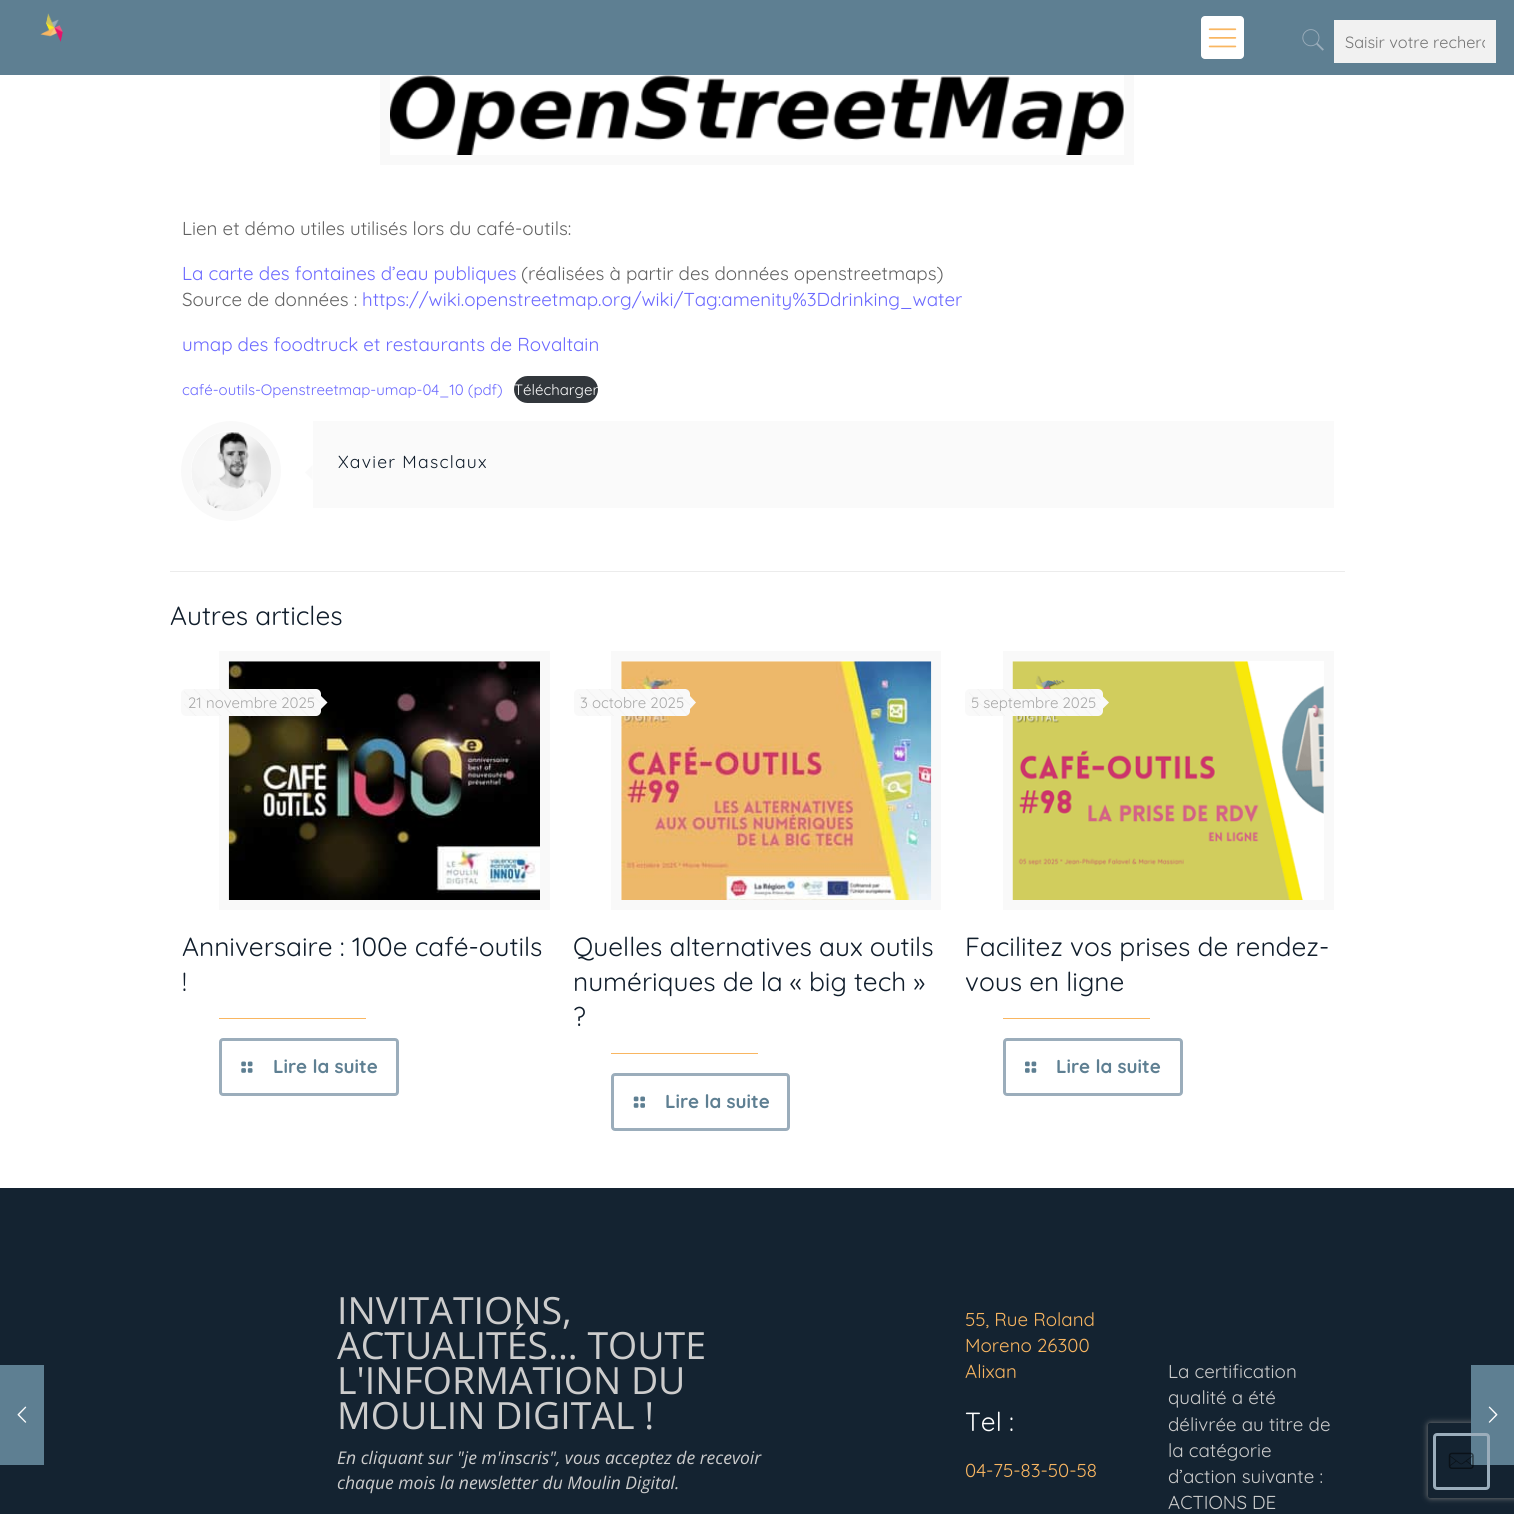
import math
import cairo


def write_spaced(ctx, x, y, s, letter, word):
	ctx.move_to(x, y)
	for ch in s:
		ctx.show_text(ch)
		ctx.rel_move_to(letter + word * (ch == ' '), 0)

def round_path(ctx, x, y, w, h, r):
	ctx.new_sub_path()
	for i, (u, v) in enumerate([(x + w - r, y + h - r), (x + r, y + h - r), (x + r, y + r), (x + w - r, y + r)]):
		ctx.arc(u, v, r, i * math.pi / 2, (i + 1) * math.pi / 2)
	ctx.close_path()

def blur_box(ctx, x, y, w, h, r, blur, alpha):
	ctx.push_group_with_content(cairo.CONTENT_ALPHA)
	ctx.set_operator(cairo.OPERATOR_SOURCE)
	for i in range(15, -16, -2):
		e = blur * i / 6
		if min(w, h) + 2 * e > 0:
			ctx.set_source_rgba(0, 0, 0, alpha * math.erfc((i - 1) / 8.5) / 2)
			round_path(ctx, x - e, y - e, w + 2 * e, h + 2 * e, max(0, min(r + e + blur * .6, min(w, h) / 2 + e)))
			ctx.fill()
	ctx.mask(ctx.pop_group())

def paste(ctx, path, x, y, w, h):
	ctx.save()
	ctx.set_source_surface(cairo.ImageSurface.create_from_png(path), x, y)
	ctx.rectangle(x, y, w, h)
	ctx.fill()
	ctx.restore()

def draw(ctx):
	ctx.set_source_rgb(1, 1, 1)
	ctx.paint()
	ctx.rectangle(385, -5, 744, 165)
	ctx.set_source_rgb(0.973, 0.973, 0.973)
	ctx.set_line_width(10)
	ctx.stroke()
	ctx.set_source_rgb(0.369, 0.498, 0.573)
	ctx.rectangle(0, 0, 1514, 75)
	ctx.fill()
	paste(ctx, 'media/1.png', 40, 13, 23, 29)
	ctx.set_source_rgb(1, 1, 1)
	round_path(ctx, 1201, 16, 43, 43, 4)
	ctx.fill()
	paste(ctx, 'media/2.png', 1208, 28, 29, 20)
	paste(ctx, 'media/3.png', 1302, 29, 22, 22)
	ctx.set_source_rgb(0.945, 0.945, 0.945)
	ctx.rectangle(1334, 20, 162, 43)
	ctx.fill()
	ctx.save()
	ctx.rectangle(1345, 31, 140, 20)
	ctx.clip()
	ctx.select_font_face('Quicksand')
	ctx.set_font_size(16.25)
	ctx.set_source_rgb(0.459, 0.459, 0.459)
	ctx.move_to(1345, 48)
	ctx.show_text('Saisir votre recherc')
	ctx.restore()
	ctx.set_source_rgb(0.082, 0.137, 0.192)
	ctx.rectangle(0, 1188, 1514, 326)
	ctx.fill()
	ctx.set_source_rgb(0.369, 0.498, 0.573)
	ctx.rectangle(0, 1365, 44, 100)
	ctx.fill()
	paste(ctx, 'media/4.png', 17, 1406, 10, 17)
	paste(ctx, 'media/5.png', 390, 75, 734, 80)
	ctx.select_font_face('Quicksand')
	ctx.set_font_size(18.75)
	ctx.set_source_rgb(0.384, 0.384, 0.384)
	ctx.move_to(182, 235)
	ctx.show_text('Lien et démo utiles utilisés lors du café-outils:')
	ctx.set_source_rgb(0.42, 0.412, 1)
	ctx.move_to(182, 280)
	ctx.show_text('La carte des fontaines d’eau publiques')
	ctx.set_source_rgb(0.384, 0.384, 0.384)
	ctx.move_to(521, 280)
	ctx.show_text('(réalisées à partir des données openstreetmaps)')
	ctx.move_to(182, 306)
	ctx.show_text('Source de données :')
	ctx.set_source_rgb(0.42, 0.412, 1)
	ctx.move_to(362, 306)
	ctx.show_text('https://wiki.openstreetmap.org/wiki/Tag:amenity%3Ddrinking_water')
	ctx.move_to(182, 351)
	ctx.show_text('umap des foodtruck et restaurants de Rovaltain')
	ctx.set_font_size(15)
	ctx.move_to(182, 395)
	ctx.show_text('café-outils-Openstreetmap-umap-04_10 (pdf)')
	ctx.set_source_rgb(0.196, 0.216, 0.235)
	round_path(ctx, 514, 376, 84, 27, 13.5)
	ctx.fill()
	ctx.set_source_rgb(1, 1, 1)
	ctx.move_to(514, 395)
	ctx.show_text('Télécharger')
	ctx.new_path()
	ctx.arc(231, 471, 45, 0, 2 * math.pi)
	ctx.set_source_rgb(0.973, 0.973, 0.973)
	ctx.stroke()
	paste(ctx, 'media/6.png', 191, 432, 80, 79)
	ctx.set_source_rgb(0.98, 0.98, 0.98)
	ctx.rectangle(313, 421, 1021, 87)
	ctx.fill()
	ctx.set_font_size(17.5)
	ctx.set_source_rgb(0.063, 0.114, 0.169)
	write_spaced(ctx, 338, 468, 'Xavier Masclaux', 1.25, 0)
	ctx.set_source_rgb(0.98, 0.98, 0.98)
	ctx.new_path()
	ctx.move_to(312.5, 465)
	ctx.line_to(312.5, 480)
	ctx.line_to(305, 472.5)
	ctx.close_path()
	ctx.fill()
	ctx.set_source_rgb(0.922, 0.922, 0.922)
	ctx.rectangle(170, 571, 1175, 1)
	ctx.fill()
	ctx.set_font_size(26.25)
	ctx.set_source_rgb(0.063, 0.114, 0.169)
	ctx.move_to(170, 625)
	ctx.show_text('Autres articles')
	ctx.rectangle(224, 656, 321, 249)
	ctx.set_source_rgb(0.973, 0.973, 0.973)
	ctx.stroke()
	paste(ctx, 'media/7.png', 228, 661, 312, 239)
	round_path(ctx, 181, 689, 140, 27, 5)
	ctx.fill()
	paste(ctx, 'media/8.png', 184, 689, 136, 27)
	ctx.set_font_size(15)
	ctx.set_source_rgb(0.659, 0.659, 0.659)
	ctx.move_to(188, 708)
	ctx.show_text('21 novembre 2025')
	ctx.set_source_rgb(0.973, 0.973, 0.973)
	ctx.new_path()
	ctx.move_to(321, 709)
	ctx.line_to(321, 696)
	ctx.line_to(327.5, 702.5)
	ctx.close_path()
	ctx.fill()
	ctx.set_font_size(26.25)
	ctx.set_source_rgb(0.063, 0.114, 0.169)
	ctx.move_to(182, 956)
	ctx.show_text('Anniversaire : 100e café-outils')
	ctx.move_to(182, 991)
	ctx.show_text('!')
	ctx.set_source_rgb(0.976, 0.714, 0.38)
	ctx.rectangle(219, 1018, 147, 1)
	ctx.fill()
	round_path(ctx, 220.5, 1039.5, 177, 55, 2.5)
	ctx.set_source_rgb(0.608, 0.678, 0.733)
	ctx.set_line_width(3)
	ctx.stroke()
	paste(ctx, 'media/9.png', 241, 1061, 12, 12)
	ctx.select_font_face('Quicksand', cairo.FONT_SLANT_NORMAL, cairo.FONT_WEIGHT_BOLD)
	ctx.set_font_size(18.75)
	ctx.set_source_rgb(0.369, 0.498, 0.573)
	ctx.move_to(273, 1073)
	ctx.show_text('Lire la suite')
	ctx.rectangle(616, 656, 320, 249)
	ctx.set_source_rgb(0.973, 0.973, 0.973)
	ctx.set_line_width(10)
	ctx.stroke()
	paste(ctx, 'media/10.png', 621, 661, 311, 239)
	round_path(ctx, 574, 689, 116, 27, 5)
	ctx.fill()
	paste(ctx, 'media/11.png', 579, 689, 111, 27)
	ctx.select_font_face('Quicksand')
	ctx.set_font_size(15)
	ctx.set_source_rgb(0.659, 0.659, 0.659)
	ctx.move_to(580, 708)
	ctx.show_text('3 octobre 2025')
	ctx.set_source_rgb(0.973, 0.973, 0.973)
	ctx.new_path()
	ctx.move_to(690, 709)
	ctx.line_to(690, 696)
	ctx.line_to(696, 702.5)
	ctx.close_path()
	ctx.fill()
	ctx.set_font_size(26.25)
	ctx.set_source_rgb(0.063, 0.114, 0.169)
	for x, y, s in [
		(573, 956, 'Quelles alternatives aux outils'),
		(573, 991, 'numériques de la « big tech »'),
		(573, 1026, '?'),
	]:
		ctx.move_to(x, y)
		ctx.show_text(s)
	ctx.set_source_rgb(0.976, 0.714, 0.38)
	ctx.rectangle(611, 1053, 147, 1)
	ctx.fill()
	round_path(ctx, 612.5, 1074.5, 176, 55, 2.5)
	ctx.set_source_rgb(0.608, 0.678, 0.733)
	ctx.set_line_width(3)
	ctx.stroke()
	paste(ctx, 'media/12.png', 633, 1096, 12, 12)
	ctx.select_font_face('Quicksand', cairo.FONT_SLANT_NORMAL, cairo.FONT_WEIGHT_BOLD)
	ctx.set_font_size(18.75)
	ctx.set_source_rgb(0.369, 0.498, 0.573)
	ctx.move_to(665, 1108)
	ctx.show_text('Lire la suite')
	ctx.rectangle(1008, 656, 321, 249)
	ctx.set_source_rgb(0.973, 0.973, 0.973)
	ctx.set_line_width(10)
	ctx.stroke()
	paste(ctx, 'media/13.png', 1012, 661, 312, 239)
	round_path(ctx, 965, 689, 138, 27, 5)
	ctx.fill()
	paste(ctx, 'media/14.png', 969, 689, 132, 27)
	ctx.select_font_face('Quicksand')
	ctx.set_font_size(15)
	ctx.set_source_rgb(0.659, 0.659, 0.659)
	ctx.move_to(971, 708)
	ctx.show_text('5 septembre 2025')
	ctx.set_source_rgb(0.973, 0.973, 0.973)
	ctx.new_path()
	ctx.move_to(1102.5, 709)
	ctx.line_to(1102.5, 696)
	ctx.line_to(1109, 702.5)
	ctx.close_path()
	ctx.fill()
	ctx.set_font_size(26.25)
	ctx.set_source_rgb(0.063, 0.114, 0.169)
	ctx.move_to(965, 956)
	ctx.show_text('Facilitez vos prises de rendez-')
	ctx.move_to(965, 991)
	ctx.show_text('vous en ligne')
	ctx.set_source_rgb(0.976, 0.714, 0.38)
	ctx.rectangle(1003, 1018, 147, 1)
	ctx.fill()
	round_path(ctx, 1004.5, 1039.5, 177, 55, 2.5)
	ctx.set_source_rgb(0.608, 0.678, 0.733)
	ctx.set_line_width(3)
	ctx.stroke()
	paste(ctx, 'media/15.png', 1025, 1061, 12, 12)
	ctx.select_font_face('Quicksand', cairo.FONT_SLANT_NORMAL, cairo.FONT_WEIGHT_BOLD)
	ctx.set_font_size(18.75)
	ctx.set_source_rgb(0.369, 0.498, 0.573)
	ctx.move_to(1056, 1073)
	ctx.show_text('Lire la suite')
	ctx.select_font_face('Open Sans')
	ctx.set_font_size(37.5)
	ctx.set_source_rgb(0.8, 0.8, 0.8)
	for x, y, s in [
		(337, 1324, 'INVITATIONS,'),
		(337, 1359, 'ACTUALITÉS... TOUTE'),
		(337, 1394, 'L\'INFORMATION DU'),
		(337, 1429, 'MOULIN DIGITAL !'),
	]:
		ctx.move_to(x, y)
		ctx.show_text(s)
	ctx.select_font_face('Open Sans', cairo.FONT_SLANT_ITALIC)
	ctx.set_font_size(17.5)
	ctx.move_to(337, 1464)
	ctx.show_text('En cliquant sur "je m\'inscris", vous acceptez de recevoir')
	ctx.move_to(337, 1489)
	ctx.show_text('chaque mois la newsletter du Moulin Digital.')
	ctx.select_font_face('Quicksand')
	ctx.set_font_size(18.75)
	ctx.set_source_rgb(0.976, 0.714, 0.38)
	for x, y, s in [
		(965, 1326, '55, Rue Roland'),
		(965, 1352, 'Moreno 26300'),
		(965, 1378, 'Alixan'),
	]:
		ctx.move_to(x, y)
		ctx.show_text(s)
	ctx.set_font_size(26.25)
	ctx.set_source_rgb(1, 1, 1)
	ctx.move_to(965, 1431)
	ctx.show_text('Tel :')
	ctx.set_font_size(18.75)
	ctx.set_source_rgb(0.976, 0.714, 0.38)
	ctx.move_to(965, 1477)
	ctx.show_text('04-75-83-50-58')
	ctx.set_source_rgb(0.8, 0.8, 0.8)
	for x, y, s in [
		(1168, 1378, 'La certification'),
		(1168, 1404, 'qualité a été'),
		(1168, 1431, 'délivrée au titre de'),
		(1168, 1457, 'la catégorie'),
		(1168, 1483, 'd’action suivante :'),
		(1168, 1509, 'ACTIONS DE'),
	]:
		ctx.move_to(x, y)
		ctx.show_text(s)
	ctx.save()
	ctx.set_fill_rule(cairo.FILL_RULE_EVEN_ODD)
	ctx.new_path()
	ctx.move_to(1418, 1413)
	ctx.line_to(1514, 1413)
	ctx.line_to(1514, 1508)
	ctx.line_to(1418, 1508)
	ctx.close_path()
	ctx.move_to(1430.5, 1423)
	ctx.line_to(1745.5, 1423)
	ctx.curve_to(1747, 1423, 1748, 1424, 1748, 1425.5)
	ctx.line_to(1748, 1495.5)
	ctx.curve_to(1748, 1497, 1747, 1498, 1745.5, 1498)
	ctx.line_to(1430.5, 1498)
	ctx.curve_to(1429, 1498, 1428, 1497, 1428, 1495.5)
	ctx.line_to(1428, 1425.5)
	ctx.curve_to(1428, 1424, 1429, 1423, 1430.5, 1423)
	ctx.close_path()
	ctx.clip()
	ctx.set_source_rgb(0.502, 0.502, 0.502)
	blur_box(ctx, 1428, 1423, 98, 75, 2.5, 3, 1)
	ctx.restore()
	ctx.set_source_rgb(0.369, 0.498, 0.573)
	ctx.rectangle(1471, 1365, 43, 100)
	ctx.fill()
	paste(ctx, 'media/16.png', 1488, 1406, 10, 17)
	round_path(ctx, 1434.5, 1434.5, 54, 54, 2.5)
	ctx.set_source_rgb(0.608, 0.678, 0.733)
	ctx.stroke()
	paste(ctx, 'media/17.png', 1448, 1452, 26, 17)


surface = cairo.ImageSurface(cairo.FORMAT_RGB24, 1514, 1514)
ctx = cairo.Context(surface)
options = cairo.FontOptions()
options.set_hint_metrics(cairo.HINT_METRICS_OFF)
options.set_hint_style(cairo.HINT_STYLE_NONE)
ctx.set_font_options(options)
ctx.set_miter_limit(4)
draw(ctx)
surface.write_to_png('image.png')
